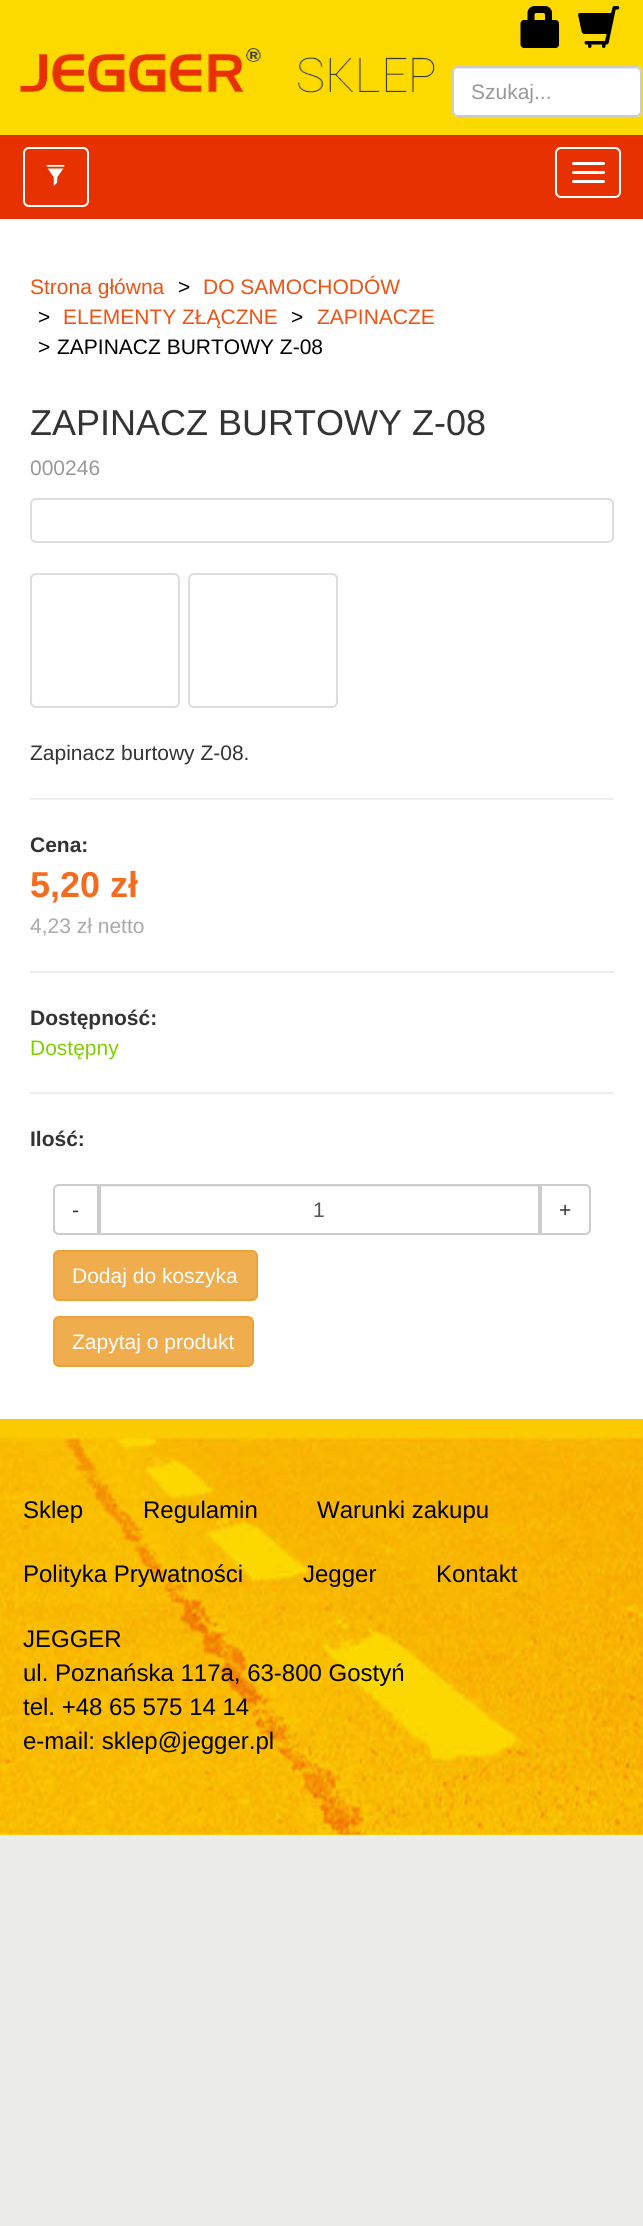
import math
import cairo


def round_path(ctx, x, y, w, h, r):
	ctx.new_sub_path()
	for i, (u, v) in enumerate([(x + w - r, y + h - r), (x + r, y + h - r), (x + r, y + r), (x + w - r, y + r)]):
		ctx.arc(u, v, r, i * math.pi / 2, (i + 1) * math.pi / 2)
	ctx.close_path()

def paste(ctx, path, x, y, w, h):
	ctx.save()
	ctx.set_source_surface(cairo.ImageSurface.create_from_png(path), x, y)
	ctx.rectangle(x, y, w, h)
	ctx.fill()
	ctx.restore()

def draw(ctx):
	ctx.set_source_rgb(0.925, 0.922, 0.914)
	ctx.paint()
	ctx.set_source_rgb(0.988, 0.855, 0)
	ctx.rectangle(0, 0, 643, 135)
	ctx.fill()
	paste(ctx, 'media/1.png', 520, 6, 39, 42)
	paste(ctx, 'media/2.png', 578, 6, 42, 42)
	paste(ctx, 'media/3.png', 19, 48, 416, 45)
	ctx.set_source_rgb(1, 1, 1)
	round_path(ctx, 452, 66, 190, 51, 6)
	ctx.fill()
	ctx.set_source_rgb(0.925, 0.925, 0.925)
	ctx.new_path()
	ctx.move_to(458, 69)
	ctx.line_to(636, 69)
	ctx.curve_to(638, 69, 640, 71, 640, 74)
	ctx.line_to(640, 112)
	ctx.line_to(639, 115)
	ctx.curve_to(640, 114, 641, 112, 641, 111)
	ctx.line_to(641, 73)
	ctx.curve_to(641, 70, 639, 68, 636, 68)
	ctx.line_to(458, 68)
	ctx.curve_to(455, 68, 453, 70, 453, 73)
	ctx.line_to(453, 74)
	ctx.curve_to(453, 71, 455, 69, 458, 69)
	ctx.close_path()
	ctx.fill()
	round_path(ctx, 453, 67, 188, 49, 5)
	ctx.set_source_rgb(0.8, 0.8, 0.8)
	ctx.stroke()
	ctx.select_font_face('Liberation Sans')
	ctx.set_font_size(21)
	ctx.set_source_rgb(0.6, 0.6, 0.6)
	ctx.move_to(471, 99)
	ctx.show_text('Szukaj...')
	ctx.set_source_rgb(0.91, 0.192, 0)
	ctx.rectangle(0, 135, 643, 84)
	ctx.fill()
	round_path(ctx, 24, 148, 64, 58, 5)
	ctx.set_source_rgb(1, 1, 1)
	ctx.stroke()
	paste(ctx, 'media/4.png', 46, 165, 19, 21)
	round_path(ctx, 556, 148, 64, 49, 5)
	ctx.stroke()
	round_path(ctx, 572, 162, 33, 3, 1.5)
	ctx.fill()
	round_path(ctx, 572, 171, 33, 3, 1.5)
	ctx.fill()
	round_path(ctx, 572, 180, 33, 3, 1.5)
	ctx.fill()
	ctx.rectangle(0, 219, 643, 1200)
	ctx.fill()
	ctx.set_source_rgb(0.933, 0.325, 0.082)
	ctx.move_to(30, 294)
	ctx.show_text('Strona główna')
	ctx.set_source_rgb(0, 0, 0)
	ctx.move_to(178, 294)
	ctx.show_text('>')
	ctx.set_source_rgb(0.933, 0.325, 0.082)
	ctx.move_to(203, 294)
	ctx.show_text('DO SAMOCHODÓW')
	ctx.set_source_rgb(0, 0, 0)
	ctx.move_to(38, 324)
	ctx.show_text('>')
	ctx.set_source_rgb(0.933, 0.325, 0.082)
	ctx.move_to(63, 324)
	ctx.show_text('ELEMENTY ZŁĄCZNE')
	ctx.set_source_rgb(0, 0, 0)
	ctx.move_to(291, 324)
	ctx.show_text('>')
	ctx.set_source_rgb(0.933, 0.325, 0.082)
	ctx.move_to(317, 324)
	ctx.show_text('ZAPINACZE')
	ctx.set_source_rgb(0, 0, 0)
	ctx.move_to(38, 354)
	ctx.show_text('>')
	ctx.move_to(57, 354)
	ctx.show_text('ZAPINACZ BURTOWY Z-08')
	ctx.set_font_size(36)
	ctx.set_source_rgb(0.2, 0.2, 0.2)
	ctx.move_to(30, 435)
	ctx.show_text('ZAPINACZ BURTOWY Z-08')
	ctx.set_font_size(21)
	ctx.set_source_rgb(0.6, 0.6, 0.6)
	ctx.move_to(30, 475)
	ctx.show_text('000246')
	round_path(ctx, 31, 499, 582, 43, 5)
	ctx.set_source_rgb(0.867, 0.867, 0.867)
	ctx.stroke()
	round_path(ctx, 31, 574, 148, 133, 5)
	ctx.stroke()
	round_path(ctx, 189, 574, 148, 133, 5)
	ctx.stroke()
	ctx.set_source_rgb(0.2, 0.2, 0.2)
	ctx.move_to(30, 760)
	ctx.show_text('Zapinacz burtowy Z-08.')
	ctx.set_source_rgb(0.933, 0.933, 0.933)
	ctx.rectangle(30, 798, 584, 2)
	ctx.fill()
	ctx.select_font_face('Liberation Sans', cairo.FONT_SLANT_NORMAL, cairo.FONT_WEIGHT_BOLD)
	ctx.set_source_rgb(0.2, 0.2, 0.2)
	ctx.move_to(30, 852)
	ctx.show_text('Cena:')
	ctx.set_font_size(36)
	ctx.set_source_rgb(0.957, 0.424, 0.118)
	ctx.move_to(30, 897)
	ctx.show_text('5,20 zł')
	ctx.select_font_face('Liberation Sans')
	ctx.set_font_size(21)
	ctx.set_source_rgb(0.667, 0.667, 0.667)
	ctx.move_to(30, 933)
	ctx.show_text('4,23 zł netto')
	ctx.set_source_rgb(0.933, 0.933, 0.933)
	ctx.rectangle(30, 971, 584, 2)
	ctx.fill()
	ctx.select_font_face('Liberation Sans', cairo.FONT_SLANT_NORMAL, cairo.FONT_WEIGHT_BOLD)
	ctx.set_source_rgb(0.2, 0.2, 0.2)
	ctx.move_to(30, 1025)
	ctx.show_text('Dostępność:')
	ctx.select_font_face('Liberation Sans')
	ctx.set_source_rgb(0.498, 0.812, 0)
	ctx.move_to(30, 1055)
	ctx.show_text('Dostępny')
	ctx.set_source_rgb(0.933, 0.933, 0.933)
	ctx.rectangle(30, 1092, 584, 2)
	ctx.fill()
	ctx.select_font_face('Liberation Sans', cairo.FONT_SLANT_NORMAL, cairo.FONT_WEIGHT_BOLD)
	ctx.set_source_rgb(0.2, 0.2, 0.2)
	ctx.move_to(30, 1146)
	ctx.show_text('Ilość:')
	ctx.new_path()
	ctx.move_to(59, 1185)
	ctx.line_to(98, 1185)
	ctx.line_to(98, 1234)
	ctx.line_to(59, 1234)
	ctx.curve_to(56, 1234, 54, 1232, 54, 1229)
	ctx.line_to(54, 1190)
	ctx.curve_to(54, 1187, 56, 1185, 59, 1185)
	ctx.close_path()
	ctx.set_source_rgb(0.8, 0.8, 0.8)
	ctx.stroke()
	ctx.select_font_face('Liberation Sans')
	ctx.set_source_rgb(0.2, 0.2, 0.2)
	ctx.move_to(72, 1217)
	ctx.show_text('-')
	ctx.set_source_rgb(0.925, 0.925, 0.925)
	ctx.rectangle(101, 1186, 438, 1)
	ctx.fill()
	ctx.rectangle(100, 1185, 439, 49)
	ctx.set_source_rgb(0.8, 0.8, 0.8)
	ctx.stroke()
	ctx.set_source_rgb(0.333, 0.333, 0.333)
	ctx.move_to(313, 1217)
	ctx.show_text('1')
	ctx.new_path()
	ctx.move_to(541, 1185)
	ctx.line_to(585, 1185)
	ctx.curve_to(588, 1185, 590, 1187, 590, 1190)
	ctx.line_to(590, 1229)
	ctx.curve_to(590, 1232, 588, 1234, 585, 1234)
	ctx.line_to(541, 1234)
	ctx.close_path()
	ctx.set_source_rgb(0.8, 0.8, 0.8)
	ctx.stroke()
	ctx.set_source_rgb(0.2, 0.2, 0.2)
	ctx.move_to(559, 1217)
	ctx.show_text('+')
	ctx.set_source_rgb(0.941, 0.678, 0.306)
	round_path(ctx, 54, 1251, 203, 49, 5)
	ctx.fill_preserve()
	ctx.set_source_rgb(0.933, 0.635, 0.212)
	ctx.stroke()
	ctx.set_source_rgb(1, 1, 1)
	ctx.move_to(72, 1283)
	ctx.show_text('Dodaj do koszyka')
	ctx.set_source_rgb(0.941, 0.678, 0.306)
	round_path(ctx, 54, 1317, 199, 49, 5)
	ctx.fill_preserve()
	ctx.set_source_rgb(0.933, 0.635, 0.212)
	ctx.stroke()
	ctx.set_source_rgb(1, 1, 1)
	ctx.move_to(72, 1349)
	ctx.show_text('Zapytaj o produkt')
	ctx.set_source_rgb(0.988, 0.855, 0)
	ctx.rectangle(0, 1834, 643, 1)
	ctx.fill()
	paste(ctx, 'media/5.png', 0, 1434, 643, 401)
	ctx.set_source_rgb(0.988, 0.792, 0)
	ctx.rectangle(0, 1419, 643, 15)
	ctx.fill()
	ctx.set_font_size(24)
	ctx.set_source_rgb(0, 0, 0)
	for x, y, s in [
		(23, 1518, 'Sklep'),
		(143, 1518, 'Regulamin'),
		(317, 1518, 'Warunki zakupu'),
		(23, 1582, 'Polityka Prywatności'),
		(303, 1582, 'Jegger'),
		(436, 1582, 'Kontakt'),
		(23, 1647, 'JEGGER'),
		(23, 1681, 'ul. Poznańska 117a, 63-800 Gostyń'),
		(23, 1715, 'tel. +48 65 575 14 14'),
		(23, 1749, 'e-mail: sklep@jegger.pl'),
	]:
		ctx.move_to(x, y)
		ctx.show_text(s)


surface = cairo.ImageSurface(cairo.FORMAT_RGB24, 643, 2226)
ctx = cairo.Context(surface)
options = cairo.FontOptions()
options.set_hint_metrics(cairo.HINT_METRICS_OFF)
options.set_hint_style(cairo.HINT_STYLE_NONE)
ctx.set_font_options(options)
ctx.set_miter_limit(4)
draw(ctx)
surface.write_to_png('image.png')
